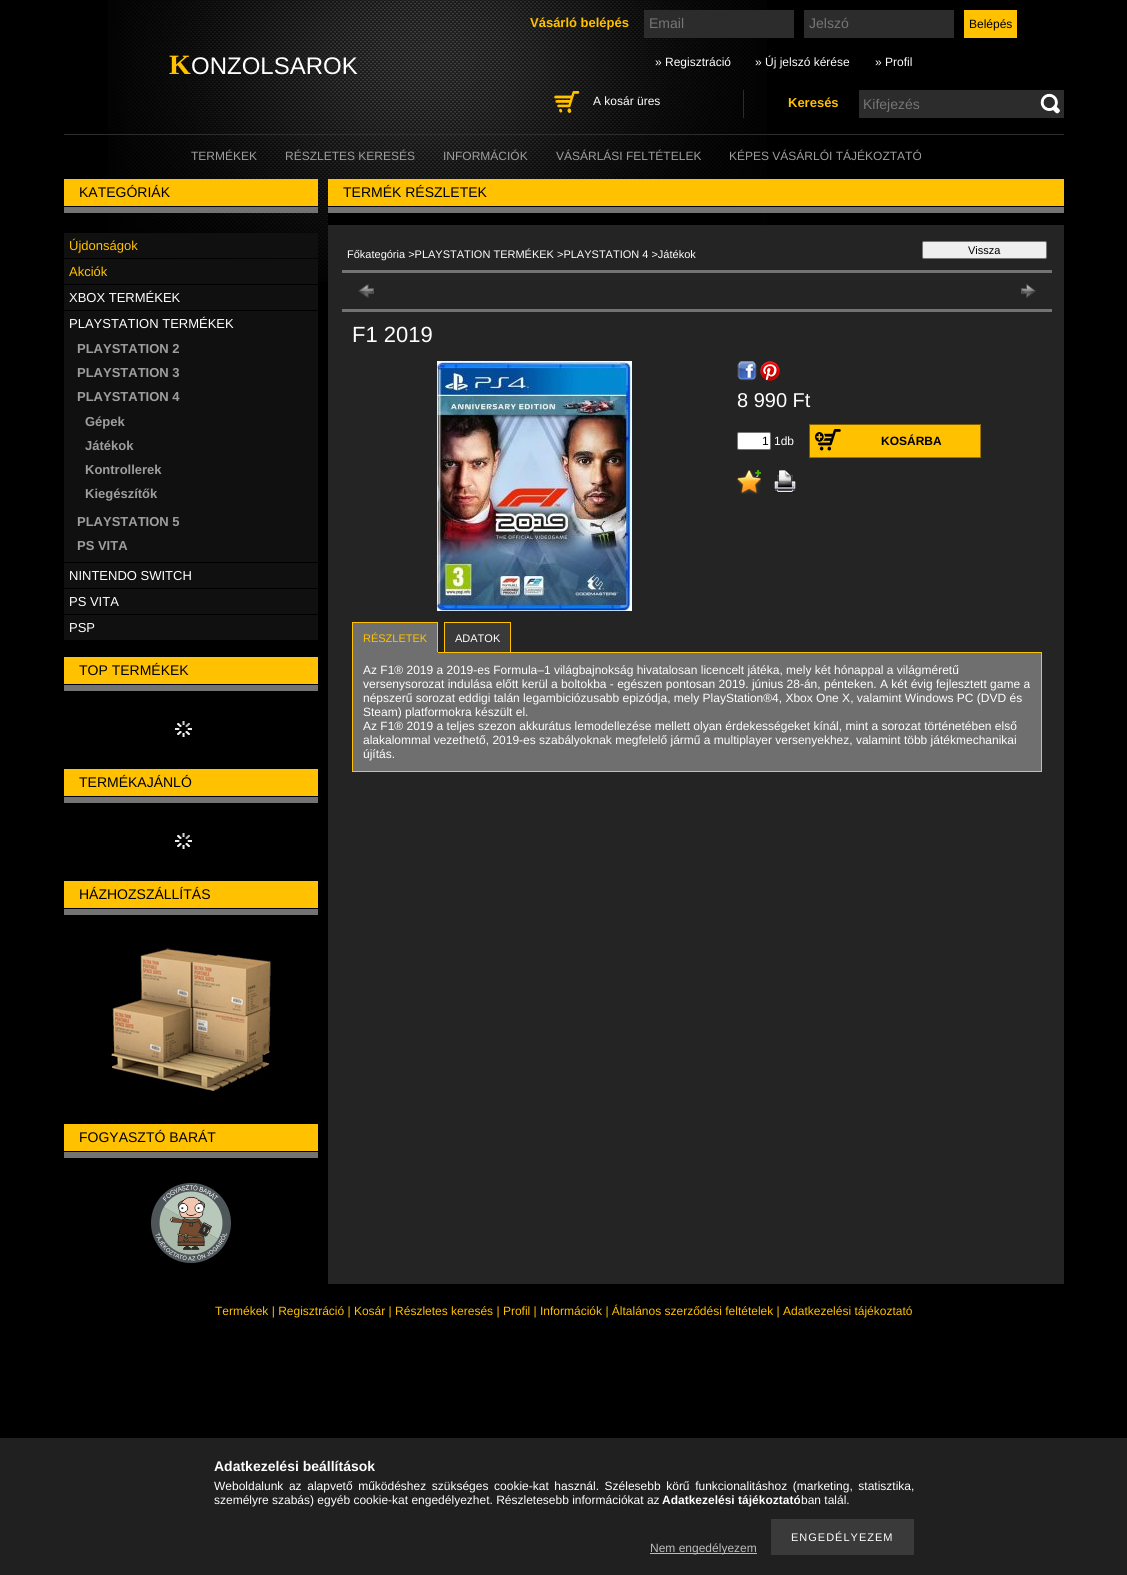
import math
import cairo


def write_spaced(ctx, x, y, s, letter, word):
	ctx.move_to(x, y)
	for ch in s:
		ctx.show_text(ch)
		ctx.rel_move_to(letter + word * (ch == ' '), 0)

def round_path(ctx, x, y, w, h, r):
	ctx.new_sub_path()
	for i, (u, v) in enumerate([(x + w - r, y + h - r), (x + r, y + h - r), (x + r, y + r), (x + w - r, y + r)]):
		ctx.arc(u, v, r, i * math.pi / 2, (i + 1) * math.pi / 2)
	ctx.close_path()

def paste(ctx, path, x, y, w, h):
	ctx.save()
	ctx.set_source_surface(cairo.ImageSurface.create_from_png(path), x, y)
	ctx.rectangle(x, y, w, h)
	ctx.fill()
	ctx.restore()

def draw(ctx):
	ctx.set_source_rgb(0, 0, 0)
	ctx.paint()
	paste(ctx, 'media/1.png', 108, 0, 659, 282)
	ctx.select_font_face('Liberation Serif', cairo.FONT_SLANT_NORMAL, cairo.FONT_WEIGHT_BOLD)
	ctx.set_font_size(28)
	ctx.set_source_rgb(1, 0.757, 0)
	ctx.move_to(169, 74)
	ctx.show_text('K')
	ctx.select_font_face('Liberation Sans')
	ctx.set_font_size(24)
	ctx.set_source_rgb(1, 1, 1)
	ctx.move_to(191, 74)
	ctx.show_text('ONZOLSAROK')
	ctx.select_font_face('Liberation Sans', cairo.FONT_SLANT_NORMAL, cairo.FONT_WEIGHT_BOLD)
	ctx.set_font_size(13)
	ctx.set_source_rgb(1, 0.757, 0)
	ctx.move_to(530, 27)
	ctx.show_text('Vásárló belépés')
	ctx.set_source_rgb(0.173, 0.173, 0.173)
	ctx.rectangle(644, 10, 150, 28)
	ctx.fill()
	ctx.select_font_face('Liberation Sans')
	ctx.set_font_size(14)
	ctx.set_source_rgb(0.459, 0.459, 0.459)
	ctx.move_to(649, 28)
	ctx.show_text('Email')
	ctx.set_source_rgb(0.173, 0.173, 0.173)
	ctx.rectangle(804, 10, 150, 28)
	ctx.fill()
	ctx.set_source_rgb(0.459, 0.459, 0.459)
	ctx.move_to(809, 28)
	ctx.show_text('Jelszó')
	ctx.set_source_rgb(1, 0.757, 0)
	ctx.rectangle(964, 10, 53, 28)
	ctx.fill()
	ctx.set_font_size(12)
	ctx.set_source_rgb(0, 0, 0)
	ctx.move_to(969, 28)
	ctx.show_text('Belépés')
	ctx.set_source_rgb(1, 1, 1)
	for x, y, s in [
		(655, 66, '» Regisztráció'),
		(755, 66, '» Új jelszó kérése'),
		(875, 66, '» Profil'),
	]:
		ctx.move_to(x, y)
		ctx.show_text(s)
	ctx.set_source_rgb(0.173, 0.173, 0.173)
	ctx.rectangle(743, 90, 1, 28)
	ctx.fill()
	paste(ctx, 'media/2.png', 554, 91, 26, 22)
	ctx.set_source_rgb(1, 1, 1)
	ctx.move_to(593, 105)
	ctx.show_text('A kosár üres')
	ctx.select_font_face('Liberation Sans', cairo.FONT_SLANT_NORMAL, cairo.FONT_WEIGHT_BOLD)
	ctx.set_font_size(13)
	ctx.set_source_rgb(1, 0.757, 0)
	ctx.move_to(788, 107)
	ctx.show_text('Keresés')
	ctx.set_source_rgb(0.173, 0.173, 0.173)
	ctx.rectangle(859, 90, 205, 28)
	ctx.fill()
	ctx.select_font_face('Liberation Sans')
	ctx.set_font_size(14)
	ctx.set_source_rgb(0.459, 0.459, 0.459)
	ctx.move_to(863, 109)
	ctx.show_text('Kifejezés')
	paste(ctx, 'media/3.png', 1040, 93, 20, 21)
	ctx.set_source_rgb(0.173, 0.173, 0.173)
	ctx.rectangle(64, 134, 1000, 1)
	ctx.fill()
	ctx.set_font_size(12)
	ctx.set_source_rgb(0.62, 0.62, 0.62)
	for x, y, s in [
		(191, 160, 'TERMÉKEK'),
		(285, 160, 'RÉSZLETES KERESÉS'),
		(443, 160, 'INFORMÁCIÓK'),
		(556, 160, 'VÁSÁRLÁSI FELTÉTELEK'),
		(729, 160, 'KÉPES VÁSÁRLÓI TÁJÉKOZTATÓ'),
	]:
		ctx.move_to(x, y)
		ctx.show_text(s)
	ctx.set_source_rgb(0.141, 0.141, 0.141)
	ctx.rectangle(328, 225, 736, 1059)
	ctx.fill()
	ctx.set_source_rgb(1, 0.757, 0)
	ctx.rectangle(64, 179, 254, 27)
	ctx.fill()
	ctx.set_font_size(14)
	ctx.set_source_rgb(0, 0, 0)
	ctx.move_to(79, 197)
	ctx.show_text('KATEGÓRIÁK')
	ctx.set_source_rgb(0.451, 0.451, 0.451)
	ctx.rectangle(64, 207, 254, 6)
	ctx.fill()
	ctx.set_source_rgb(0.063, 0.063, 0.063)
	ctx.rectangle(64, 233, 254, 25)
	ctx.fill()
	ctx.set_font_size(13)
	ctx.set_source_rgb(1, 0.757, 0)
	ctx.move_to(69, 250)
	ctx.show_text('Újdonságok')
	ctx.set_source_rgb(0.063, 0.063, 0.063)
	ctx.rectangle(64, 259, 254, 25)
	ctx.fill()
	ctx.set_source_rgb(1, 0.757, 0)
	ctx.move_to(69, 276)
	ctx.show_text('Akciók')
	ctx.set_source_rgb(0.063, 0.063, 0.063)
	ctx.rectangle(64, 285, 254, 25)
	ctx.fill()
	ctx.set_source_rgb(1, 1, 1)
	ctx.move_to(69, 302)
	ctx.show_text('XBOX TERMÉKEK')
	ctx.set_source_rgb(0.063, 0.063, 0.063)
	ctx.rectangle(64, 311, 254, 251)
	ctx.fill()
	ctx.set_source_rgb(1, 1, 1)
	ctx.move_to(69, 328)
	ctx.show_text('PLAYSTATION TERMÉKEK')
	ctx.select_font_face('Liberation Sans', cairo.FONT_SLANT_NORMAL, cairo.FONT_WEIGHT_BOLD)
	ctx.set_source_rgb(0.62, 0.62, 0.62)
	for x, y, s in [
		(77, 353, 'PLAYSTATION 2'),
		(77, 377, 'PLAYSTATION 3'),
		(77, 401, 'PLAYSTATION 4'),
		(85, 426, 'Gépek'),
		(85, 450, 'Játékok'),
		(85, 474, 'Kontrollerek'),
		(85, 498, 'Kiegészítők'),
		(77, 526, 'PLAYSTATION 5'),
		(77, 550, 'PS VITA'),
	]:
		ctx.move_to(x, y)
		ctx.show_text(s)
	ctx.set_source_rgb(0.063, 0.063, 0.063)
	ctx.rectangle(64, 563, 254, 25)
	ctx.fill()
	ctx.select_font_face('Liberation Sans')
	ctx.set_source_rgb(1, 1, 1)
	ctx.move_to(69, 580)
	ctx.show_text('NINTENDO SWITCH')
	ctx.set_source_rgb(0.063, 0.063, 0.063)
	ctx.rectangle(64, 589, 254, 25)
	ctx.fill()
	ctx.set_source_rgb(1, 1, 1)
	ctx.move_to(69, 606)
	ctx.show_text('PS VITA')
	ctx.set_source_rgb(0.063, 0.063, 0.063)
	ctx.rectangle(64, 615, 254, 25)
	ctx.fill()
	ctx.set_source_rgb(1, 1, 1)
	ctx.move_to(69, 632)
	ctx.show_text('PSP')
	ctx.set_source_rgb(1, 0.757, 0)
	ctx.rectangle(64, 657, 254, 27)
	ctx.fill()
	ctx.set_font_size(14)
	ctx.set_source_rgb(0, 0, 0)
	ctx.move_to(79, 675)
	ctx.show_text('TOP TERMÉKEK')
	ctx.set_source_rgb(0.451, 0.451, 0.451)
	ctx.rectangle(64, 685, 254, 6)
	ctx.fill()
	paste(ctx, 'media/4.png', 175, 721, 17, 16)
	ctx.set_source_rgb(1, 0.757, 0)
	ctx.rectangle(64, 769, 254, 27)
	ctx.fill()
	ctx.set_source_rgb(0, 0, 0)
	ctx.move_to(79, 787)
	ctx.show_text('TERMÉKAJÁNLÓ')
	ctx.set_source_rgb(0.451, 0.451, 0.451)
	ctx.rectangle(64, 797, 254, 6)
	ctx.fill()
	paste(ctx, 'media/4.png', 175, 833, 17, 16)
	ctx.set_source_rgb(1, 0.757, 0)
	ctx.rectangle(64, 881, 254, 27)
	ctx.fill()
	ctx.set_source_rgb(0, 0, 0)
	ctx.move_to(79, 899)
	ctx.show_text('HÁZHOZSZÁLLÍTÁS')
	ctx.set_source_rgb(0.451, 0.451, 0.451)
	ctx.rectangle(64, 909, 254, 6)
	ctx.fill()
	paste(ctx, 'media/5.png', 111, 948, 160, 143)
	ctx.set_source_rgb(1, 0.757, 0)
	ctx.rectangle(64, 1124, 254, 27)
	ctx.fill()
	ctx.set_source_rgb(0, 0, 0)
	ctx.move_to(79, 1142)
	ctx.show_text('FOGYASZTÓ BARÁT')
	ctx.set_source_rgb(0.451, 0.451, 0.451)
	ctx.rectangle(64, 1152, 254, 6)
	ctx.fill()
	paste(ctx, 'media/6.png', 151, 1183, 80, 80)
	ctx.set_source_rgb(1, 0.757, 0)
	ctx.rectangle(328, 179, 736, 27)
	ctx.fill()
	ctx.set_source_rgb(0, 0, 0)
	ctx.move_to(343, 197)
	ctx.show_text('TERMÉK RÉSZLETEK')
	ctx.rectangle(328, 206, 402, 1)
	ctx.fill()
	ctx.set_source_rgb(0.451, 0.451, 0.451)
	ctx.rectangle(328, 207, 736, 6)
	ctx.fill()
	ctx.set_source_rgb(0, 0, 0)
	ctx.rectangle(328, 213, 433, 12)
	ctx.fill()
	ctx.set_font_size(11)
	ctx.set_source_rgb(1, 1, 1)
	ctx.move_to(347, 258)
	ctx.show_text('Főkategória >PLAYSTATION TERMÉKEK >PLAYSTATION 4 >Játékok')
	ctx.set_source_rgb(0.937, 0.937, 0.937)
	round_path(ctx, 922.5, 241.5, 124, 17, 1.5)
	ctx.fill_preserve()
	ctx.set_source_rgb(0.463, 0.463, 0.463)
	ctx.set_line_width(1)
	ctx.stroke()
	ctx.set_source_rgb(0, 0, 0)
	ctx.move_to(968, 254)
	ctx.show_text('Vissza')
	ctx.set_source_rgb(0.451, 0.451, 0.451)
	ctx.rectangle(342, 270, 710, 3)
	ctx.fill()
	paste(ctx, 'media/7.png', 358, 284, 16, 14)
	paste(ctx, 'media/8.png', 1021, 284, 15, 14)
	ctx.rectangle(342, 309, 710, 3)
	ctx.fill()
	ctx.set_font_size(22)
	ctx.set_source_rgb(1, 1, 1)
	ctx.move_to(352, 342)
	ctx.show_text('F1 2019')
	paste(ctx, 'media/9.png', 437, 361, 195, 250)
	paste(ctx, 'media/10.png', 737, 361, 20, 20)
	paste(ctx, 'media/11.png', 760, 361, 20, 20)
	ctx.set_font_size(20)
	ctx.move_to(737, 407)
	ctx.show_text('8 990 Ft')
	round_path(ctx, 737.5, 432.5, 33, 17, 1.5)
	ctx.fill_preserve()
	ctx.set_source_rgb(0.463, 0.463, 0.463)
	ctx.stroke()
	ctx.set_font_size(12)
	ctx.set_source_rgb(0, 0, 0)
	ctx.move_to(762, 445)
	ctx.show_text('1')
	ctx.set_source_rgb(1, 1, 1)
	ctx.move_to(774, 445)
	ctx.show_text('1db')
	ctx.set_source_rgb(1, 0.757, 0)
	ctx.rectangle(810, 425, 170, 32)
	ctx.fill()
	paste(ctx, 'media/12.png', 815, 429, 26, 22)
	ctx.set_source_rgb(0.49, 0.373, 0)
	ctx.rectangle(809, 424, 172, 1)
	ctx.fill()
	ctx.set_source_rgb(0.608, 0.459, 0)
	ctx.rectangle(980, 424, 1, 34)
	ctx.rectangle(809, 457, 172, 1)
	ctx.fill()
	ctx.set_source_rgb(0.49, 0.373, 0)
	ctx.rectangle(809, 424, 1, 34)
	ctx.fill()
	ctx.select_font_face('Liberation Sans', cairo.FONT_SLANT_NORMAL, cairo.FONT_WEIGHT_BOLD)
	ctx.set_source_rgb(0, 0, 0)
	ctx.move_to(881, 445)
	ctx.show_text('KOSÁRBA')
	paste(ctx, 'media/13.png', 737, 470, 24, 24)
	paste(ctx, 'media/14.png', 774, 470, 22, 23)
	ctx.set_source_rgb(0.435, 0.435, 0.435)
	ctx.rectangle(353, 623, 84, 29)
	ctx.fill()
	ctx.set_source_rgb(1, 0.757, 0)
	ctx.rectangle(352, 622, 86, 1)
	ctx.fill()
	ctx.set_source_rgb(0.435, 0.435, 0.435)
	ctx.rectangle(352.5, 652.5, 689, 119)
	ctx.fill_preserve()
	ctx.set_source_rgb(1, 0.757, 0)
	ctx.stroke()
	ctx.rectangle(437, 622, 1, 31)
	ctx.fill()
	ctx.set_source_rgb(0.435, 0.435, 0.435)
	ctx.rectangle(352, 652, 86, 1)
	ctx.fill()
	ctx.set_source_rgb(1, 0.757, 0)
	ctx.rectangle(352, 622, 1, 31)
	ctx.fill()
	ctx.select_font_face('Liberation Sans')
	ctx.set_font_size(11)
	ctx.move_to(363, 642)
	ctx.show_text('RÉSZLETEK')
	ctx.set_source_rgb(0.227, 0.227, 0.227)
	ctx.rectangle(444.5, 622.5, 66, 30)
	ctx.fill_preserve()
	ctx.set_source_rgb(1, 0.757, 0)
	ctx.stroke()
	ctx.set_source_rgb(1, 1, 1)
	ctx.move_to(455, 642)
	ctx.show_text('ADATOK')
	ctx.set_font_size(12)
	for x, y, s in [
		(363, 674, 'Az F1® 2019 a 2019-es Formula–1 világbajnokság hivatalosan licencelt játéka, mely két hónappal a világméretű'),
		(363, 688, 'versenysorozat indulása előtt kerül a boltokba - egészen pontosan 2019. június 28-án, pénteken. A két évig fejlesztett game a'),
		(363, 702, 'népszerű sorozat eddigi talán legambiciózusabb epizódja, mely PlayStation®4, Xbox One X, valamint Windows PC (DVD és'),
		(363, 716, 'Steam) platformokra készült el.'),
		(363, 730, 'Az F1® 2019 a teljes szezon akkurátus lemodellezése mellett olyan érdekességeket kínál, mint a sorozat történetében első'),
		(363, 744, 'alakalommal vezethető, 2019-es szabályoknak megfelelő jármű a multiplayer versenyekhez, valamint több játékmechanikai'),
		(363, 758, 'újítás.'),
	]:
		ctx.move_to(x, y)
		ctx.show_text(s)
	ctx.set_source_rgb(1, 0.757, 0)
	ctx.move_to(215, 1315)
	ctx.show_text('Termékek | Regisztráció | Kosár | Részletes keresés | Profil | Információk | Általános szerződési feltételek | Adatkezelési tájékoztató')
	ctx.set_source_rgb(0.125, 0.125, 0.125)
	ctx.rectangle(0, 1438, 1127, 137)
	ctx.fill()
	ctx.select_font_face('Liberation Sans', cairo.FONT_SLANT_NORMAL, cairo.FONT_WEIGHT_BOLD)
	ctx.set_font_size(14)
	ctx.set_source_rgb(1, 1, 1)
	ctx.move_to(214, 1471)
	ctx.show_text('Adatkezelési beállítások')
	ctx.select_font_face('Liberation Sans')
	ctx.set_font_size(12)
	write_spaced(ctx, 214, 1490, 'Weboldalunk az alapvető működéshez szükséges cookie-kat használ. Szélesebb körű funkcionalitáshoz (marketing, statisztika,', 0, 2.25)
	ctx.move_to(214, 1504)
	ctx.show_text('személyre szabás) egyéb cookie-kat engedélyezhet. Részletesebb információkat az')
	ctx.select_font_face('Liberation Sans', cairo.FONT_SLANT_NORMAL, cairo.FONT_WEIGHT_BOLD)
	ctx.move_to(662, 1504)
	ctx.show_text('Adatkezelési tájékoztató')
	ctx.select_font_face('Liberation Sans')
	ctx.move_to(801, 1504)
	ctx.show_text('ban talál.')
	ctx.set_source_rgb(0.227, 0.227, 0.227)
	ctx.rectangle(771, 1519, 143, 36)
	ctx.fill()
	ctx.set_font_size(11)
	ctx.set_source_rgb(1, 1, 1)
	write_spaced(ctx, 791, 1541, 'ENGEDÉLYEZEM', 1, 0)
	ctx.set_source_rgb(0.737, 0.737, 0.737)
	ctx.rectangle(650, 1553, 107, 1)
	ctx.fill()
	ctx.set_font_size(12)
	ctx.move_to(650, 1552)
	ctx.show_text('Nem engedélyezem')


surface = cairo.ImageSurface(cairo.FORMAT_RGB24, 1127, 1575)
ctx = cairo.Context(surface)
options = cairo.FontOptions()
options.set_hint_metrics(cairo.HINT_METRICS_OFF)
options.set_hint_style(cairo.HINT_STYLE_NONE)
ctx.set_font_options(options)
ctx.set_miter_limit(4)
draw(ctx)
surface.write_to_png('image.png')
